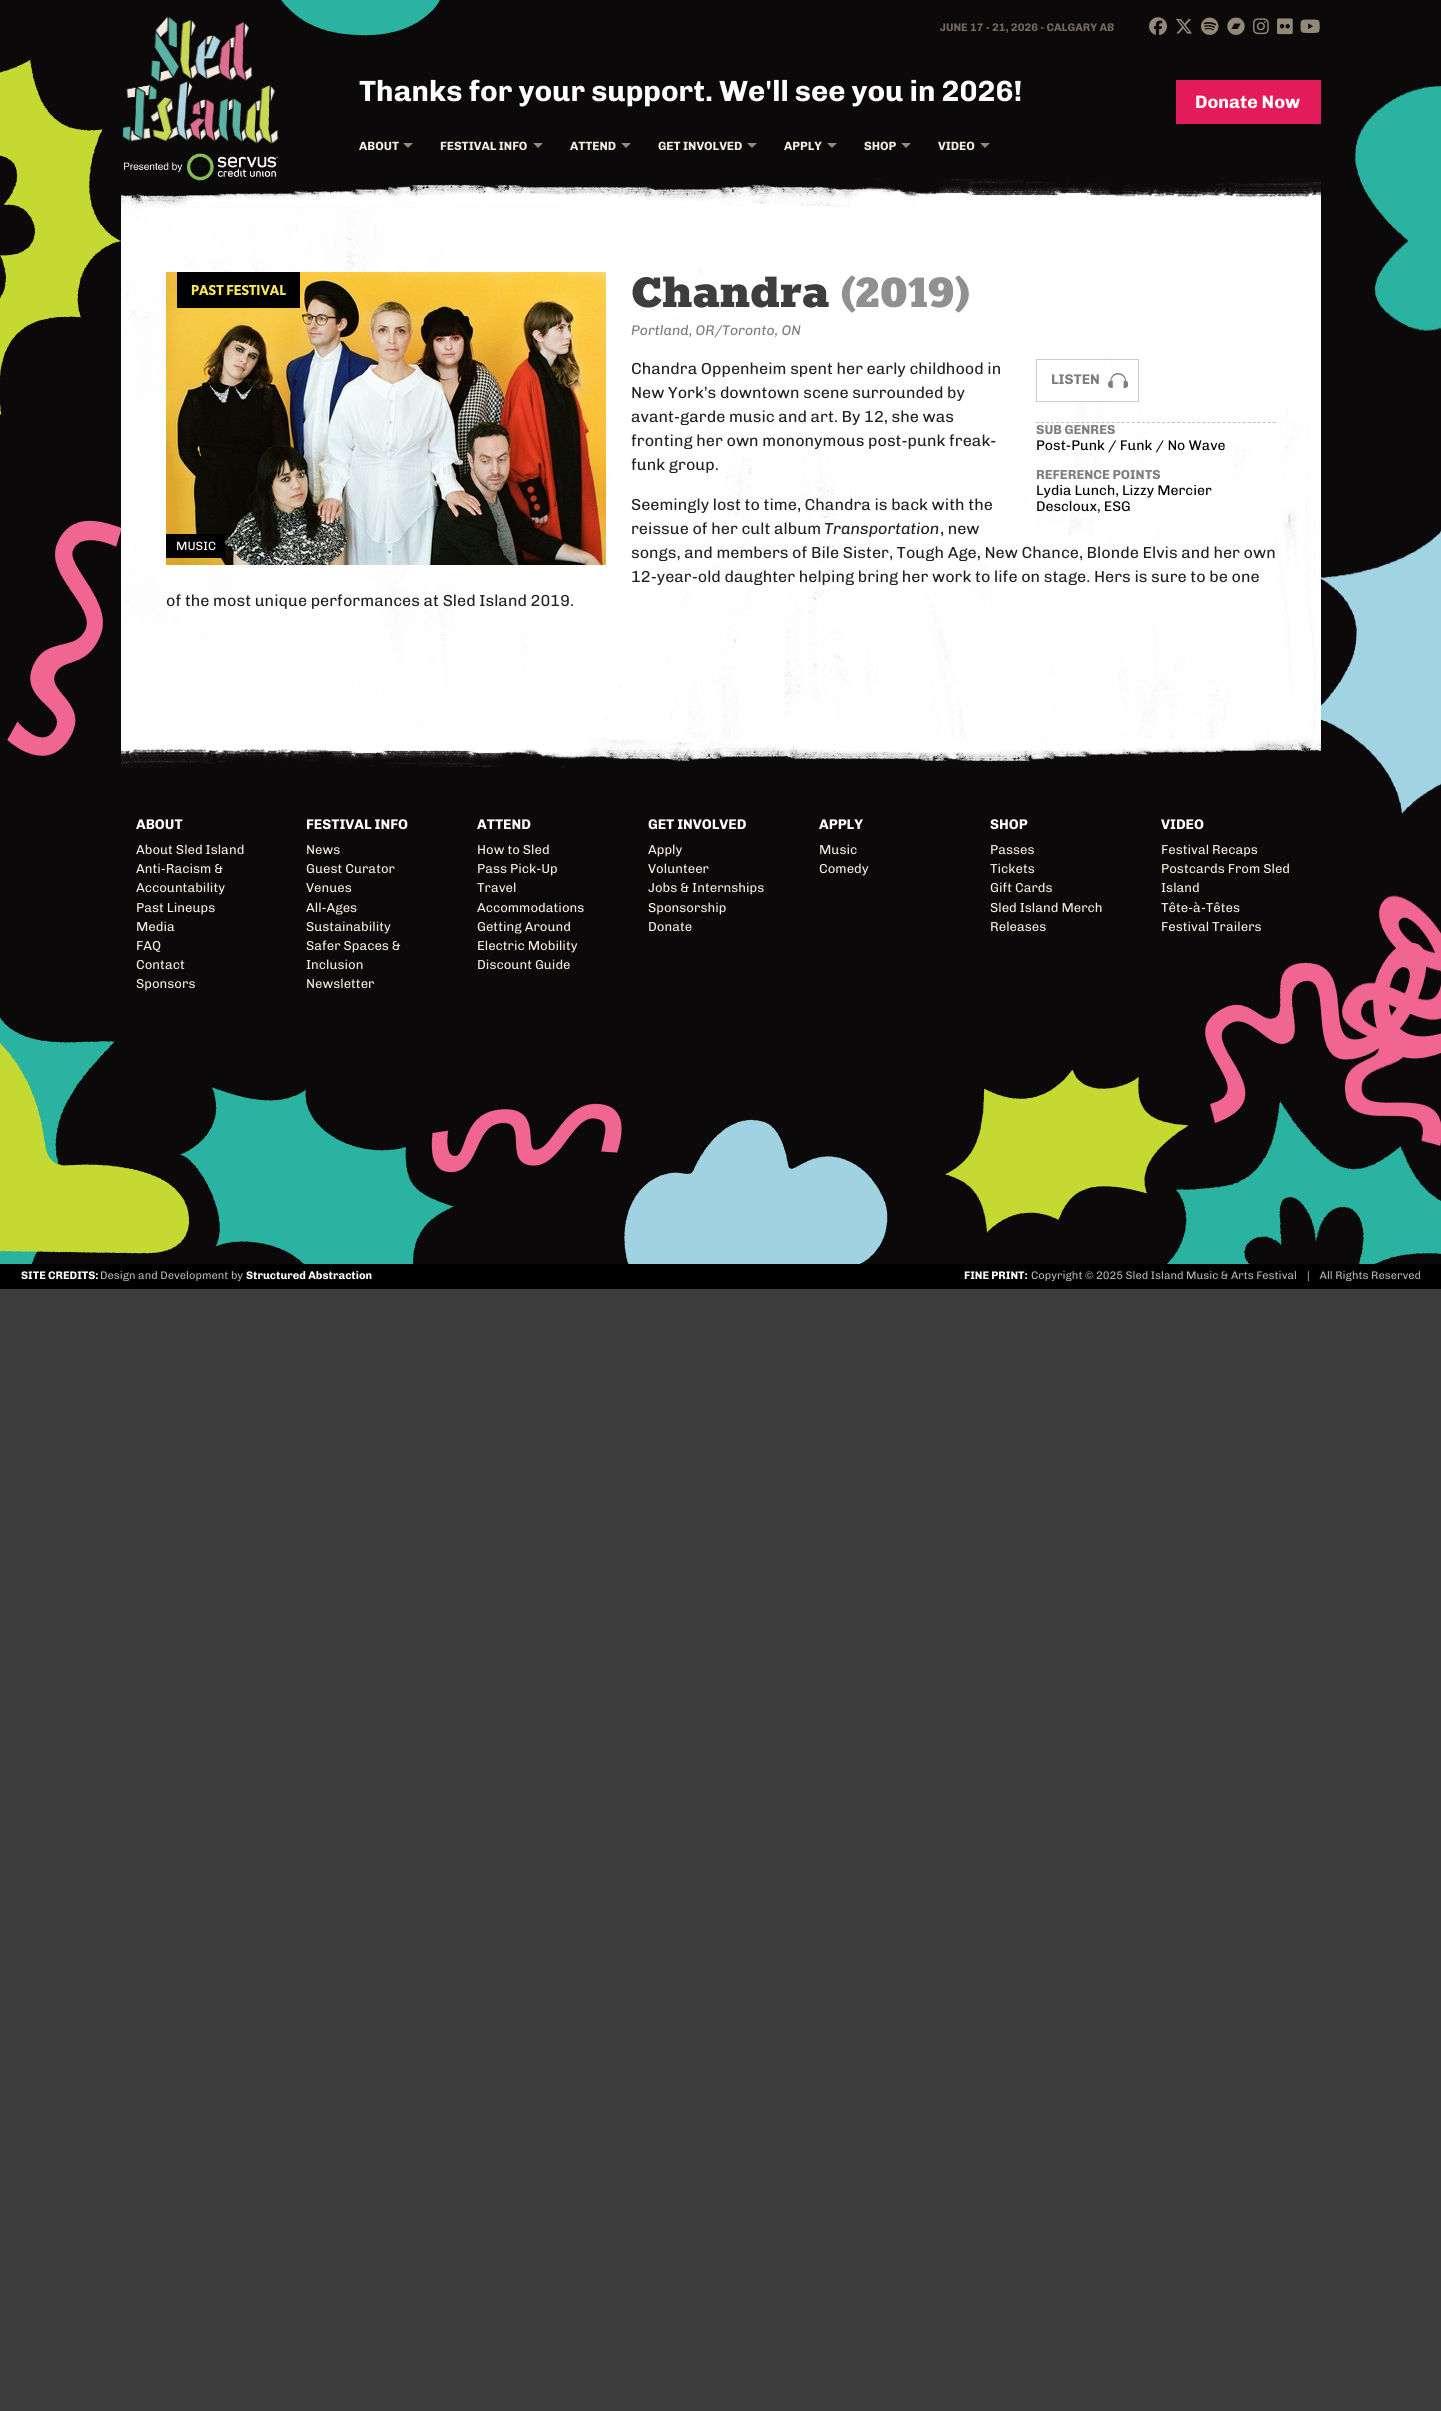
import math
import cairo


def paste(ctx, path, x, y, w, h):
	ctx.save()
	ctx.set_source_surface(cairo.ImageSurface.create_from_png(path), x, y)
	ctx.rectangle(x, y, w, h)
	ctx.fill()
	ctx.restore()

def draw(ctx):
	ctx.set_source_rgb(0.239, 0.239, 0.239)
	ctx.paint()
	ctx.set_source_rgb(0.043, 0.039, 0.039)
	ctx.rectangle(0, 0, 1441, 1264)
	ctx.fill()
	paste(ctx, 'media/1.png', 0, 59, 121, 1205)
	paste(ctx, 'media/2.png', 281, 0, 159, 36)
	paste(ctx, 'media/3.png', 122, 16, 157, 128)
	paste(ctx, 'media/13.png', 121, 178, 1200, 29)
	paste(ctx, 'media/4.png', 124, 153, 154, 28)
	ctx.select_font_face('Chivo', cairo.FONT_SLANT_NORMAL, cairo.FONT_WEIGHT_BOLD)
	ctx.set_font_size(11)
	ctx.set_source_rgb(0.439, 0.416, 0.357)
	ctx.move_to(940, 31)
	ctx.show_text('JUNE 17 - 21, 2026 - CALGARY AB')
	paste(ctx, 'media/5.png', 1149, 17, 18, 19)
	paste(ctx, 'media/6.png', 1176, 18, 16, 16)
	paste(ctx, 'media/7.png', 1201, 17, 18, 18)
	paste(ctx, 'media/8.png', 1227, 17, 18, 18)
	paste(ctx, 'media/9.png', 1253, 18, 16, 17)
	paste(ctx, 'media/10.png', 1277, 18, 16, 17)
	paste(ctx, 'media/11.png', 1300, 19, 20, 14)
	ctx.set_font_size(29.3)
	ctx.set_source_rgb(1, 1, 1)
	ctx.move_to(359, 101)
	ctx.show_text('Thanks for your support. We\'ll see you in 2026!')
	ctx.set_source_rgb(0.894, 0.106, 0.357)
	ctx.rectangle(1176, 80, 145, 44)
	ctx.fill()
	ctx.set_font_size(18)
	ctx.set_source_rgb(1, 1, 1)
	ctx.move_to(1195, 108)
	ctx.show_text('Donate Now')
	ctx.set_source_rgb(0.573, 0.541, 0.463)
	ctx.set_fill_rule(cairo.FILL_RULE_EVEN_ODD)
	ctx.new_path()
	ctx.move_to(403, 143)
	ctx.line_to(408, 148)
	ctx.line_to(413, 143)
	ctx.close_path()
	ctx.fill()
	ctx.set_font_size(12)
	ctx.set_source_rgb(0.957, 0.925, 0.867)
	ctx.move_to(359, 150)
	ctx.show_text('ABOUT')
	ctx.set_source_rgb(0.573, 0.541, 0.463)
	ctx.new_path()
	ctx.move_to(533, 143)
	ctx.line_to(538, 148)
	ctx.line_to(543, 143)
	ctx.close_path()
	ctx.fill()
	ctx.set_source_rgb(0.957, 0.925, 0.867)
	ctx.move_to(440, 150)
	ctx.show_text('FESTIVAL INFO')
	ctx.set_source_rgb(0.573, 0.541, 0.463)
	ctx.new_path()
	ctx.move_to(621, 143)
	ctx.line_to(626, 148)
	ctx.line_to(631, 143)
	ctx.close_path()
	ctx.fill()
	ctx.set_source_rgb(0.957, 0.925, 0.867)
	ctx.move_to(570, 150)
	ctx.show_text('ATTEND')
	ctx.set_source_rgb(0.573, 0.541, 0.463)
	ctx.new_path()
	ctx.move_to(747, 143)
	ctx.line_to(752, 148)
	ctx.line_to(757, 143)
	ctx.close_path()
	ctx.fill()
	ctx.set_source_rgb(0.957, 0.925, 0.867)
	ctx.move_to(658, 150)
	ctx.show_text('GET INVOLVED')
	ctx.set_source_rgb(0.573, 0.541, 0.463)
	ctx.new_path()
	ctx.move_to(827, 143)
	ctx.line_to(832, 148)
	ctx.line_to(837, 143)
	ctx.close_path()
	ctx.fill()
	ctx.set_source_rgb(0.957, 0.925, 0.867)
	ctx.move_to(784, 150)
	ctx.show_text('APPLY')
	ctx.set_source_rgb(0.573, 0.541, 0.463)
	ctx.new_path()
	ctx.move_to(901, 143)
	ctx.line_to(906, 148)
	ctx.line_to(911, 143)
	ctx.close_path()
	ctx.fill()
	ctx.set_source_rgb(0.957, 0.925, 0.867)
	ctx.move_to(864, 150)
	ctx.show_text('SHOP')
	ctx.set_source_rgb(0.573, 0.541, 0.463)
	ctx.new_path()
	ctx.move_to(980, 143)
	ctx.line_to(985, 148)
	ctx.line_to(990, 143)
	ctx.close_path()
	ctx.fill()
	ctx.set_source_rgb(0.957, 0.925, 0.867)
	ctx.move_to(938, 150)
	ctx.show_text('VIDEO')
	paste(ctx, 'media/12.png', 1321, 86, 120, 1060)
	ctx.set_source_rgb(1, 1, 1)
	ctx.rectangle(121, 207, 1200, 532)
	ctx.fill()
	paste(ctx, 'media/14.png', 124, 207, 1192, 532)
	ctx.select_font_face('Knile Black')
	ctx.set_font_size(42)
	ctx.set_source_rgb(0.239, 0.239, 0.239)
	ctx.move_to(631, 307)
	ctx.show_text('Chandra')
	ctx.set_source_rgb(0.565, 0.565, 0.565)
	ctx.move_to(840, 307)
	ctx.show_text('(2019)')
	ctx.select_font_face('Chivo', cairo.FONT_SLANT_ITALIC)
	ctx.set_font_size(14)
	ctx.set_source_rgb(0.494, 0.494, 0.494)
	ctx.move_to(631, 335)
	ctx.show_text('Portland, OR/Toronto, ON')
	ctx.select_font_face('Chivo')
	ctx.set_font_size(16)
	ctx.set_source_rgb(0.133, 0.133, 0.133)
	for x, y, s in [
		(631, 374, 'Chandra Oppenheim spent her early childhood in'),
		(631, 398, 'New York’s downtown scene surrounded by'),
		(631, 422, 'avant-garde music and art. By 12, she was'),
		(631, 446, 'fronting her own mononymous post-punk freak-'),
		(631, 470, 'funk group.'),
		(631, 510, 'Seemingly lost to time, Chandra is back with the'),
		(631, 534, 'reissue of her cult album'),
	]:
		ctx.move_to(x, y)
		ctx.show_text(s)
	ctx.select_font_face('Chivo', cairo.FONT_SLANT_ITALIC)
	ctx.move_to(824, 534)
	ctx.show_text('Transportation')
	ctx.select_font_face('Chivo')
	for x, y, s in [
		(940, 534, ', new'),
		(631, 558, 'songs, and members of Bile Sister, Tough Age, New Chance, Blonde Elvis and her own'),
		(631, 582, '12-year-old daughter helping bring her work to life on stage. Hers is sure to be one'),
		(166, 606, 'of the most unique performances at Sled Island 2019.'),
	]:
		ctx.move_to(x, y)
		ctx.show_text(s)
	ctx.new_path()
	ctx.move_to(1036, 422.5)
	ctx.line_to(1276, 422.5)
	ctx.set_source_rgb(0.753, 0.753, 0.753)
	ctx.set_line_width(1)
	ctx.set_dash([3, 2.04])
	ctx.stroke()
	ctx.set_source_rgb(1, 1, 1)
	ctx.rectangle(1076, 367, 33, 34)
	ctx.fill()
	paste(ctx, 'media/15.png', 1108, 373, 20, 15)
	ctx.rectangle(1036.5, 359.5, 102, 42)
	ctx.set_source_rgb(0.8, 0.8, 0.8)
	ctx.set_dash([])
	ctx.stroke()
	ctx.select_font_face('Chivo', cairo.FONT_SLANT_NORMAL, cairo.FONT_WEIGHT_BOLD)
	ctx.set_font_size(14)
	ctx.set_source_rgb(0.494, 0.494, 0.494)
	ctx.move_to(1051, 384)
	ctx.show_text('LISTEN')
	ctx.set_font_size(13)
	ctx.move_to(1036, 434)
	ctx.show_text('SUB GENRES')
	ctx.select_font_face('Chivo')
	ctx.set_font_size(14)
	ctx.set_source_rgb(0, 0, 0)
	ctx.move_to(1036, 450)
	ctx.show_text('Post-Punk / Funk / No Wave')
	ctx.select_font_face('Chivo', cairo.FONT_SLANT_NORMAL, cairo.FONT_WEIGHT_BOLD)
	ctx.set_font_size(13)
	ctx.set_source_rgb(0.494, 0.494, 0.494)
	ctx.move_to(1036, 479)
	ctx.show_text('REFERENCE POINTS')
	ctx.select_font_face('Chivo')
	ctx.set_font_size(14)
	ctx.set_source_rgb(0, 0, 0)
	ctx.move_to(1036, 495)
	ctx.show_text('Lydia Lunch, Lizzy Mercier')
	ctx.move_to(1036, 511)
	ctx.show_text('Descloux, ESG')
	paste(ctx, 'media/16.png', 166, 272, 440, 293)
	paste(ctx, 'media/17.png', 177, 272, 123, 36)
	ctx.rectangle(166, 534, 59, 24)
	ctx.fill()
	ctx.set_font_size(12)
	ctx.set_source_rgb(1, 1, 1)
	ctx.move_to(176, 550)
	ctx.show_text('MUSIC')
	paste(ctx, 'media/18.png', 121, 739, 1200, 29)
	ctx.select_font_face('Chivo', cairo.FONT_SLANT_NORMAL, cairo.FONT_WEIGHT_BOLD)
	ctx.set_font_size(14)
	ctx.move_to(136, 829)
	ctx.show_text('ABOUT')
	ctx.select_font_face('Chivo')
	ctx.set_font_size(13)
	ctx.set_source_rgb(0.957, 0.925, 0.867)
	for x, y, s in [
		(136, 854, 'About Sled Island'),
		(136, 873, 'Anti-Racism &'),
		(136, 892, 'Accountability'),
		(136, 912, 'Past Lineups'),
		(136, 931, 'Media'),
		(136, 950, 'FAQ'),
		(136, 969, 'Contact'),
		(136, 988, 'Sponsors'),
	]:
		ctx.move_to(x, y)
		ctx.show_text(s)
	ctx.select_font_face('Chivo', cairo.FONT_SLANT_NORMAL, cairo.FONT_WEIGHT_BOLD)
	ctx.set_font_size(14)
	ctx.set_source_rgb(1, 1, 1)
	ctx.move_to(306, 829)
	ctx.show_text('FESTIVAL INFO')
	ctx.select_font_face('Chivo')
	ctx.set_font_size(13)
	ctx.set_source_rgb(0.957, 0.925, 0.867)
	for x, y, s in [
		(306, 854, 'News'),
		(306, 873, 'Guest Curator'),
		(306, 892, 'Venues'),
		(306, 912, 'All-Ages'),
		(306, 931, 'Sustainability'),
		(306, 950, 'Safer Spaces &'),
		(306, 969, 'Inclusion'),
		(306, 988, 'Newsletter'),
	]:
		ctx.move_to(x, y)
		ctx.show_text(s)
	ctx.select_font_face('Chivo', cairo.FONT_SLANT_NORMAL, cairo.FONT_WEIGHT_BOLD)
	ctx.set_font_size(14)
	ctx.set_source_rgb(1, 1, 1)
	ctx.move_to(477, 829)
	ctx.show_text('ATTEND')
	ctx.select_font_face('Chivo')
	ctx.set_font_size(13)
	ctx.set_source_rgb(0.957, 0.925, 0.867)
	for x, y, s in [
		(477, 854, 'How to Sled'),
		(477, 873, 'Pass Pick-Up'),
		(477, 892, 'Travel'),
		(477, 912, 'Accommodations'),
		(477, 931, 'Getting Around'),
		(477, 950, 'Electric Mobility'),
		(477, 969, 'Discount Guide'),
	]:
		ctx.move_to(x, y)
		ctx.show_text(s)
	ctx.select_font_face('Chivo', cairo.FONT_SLANT_NORMAL, cairo.FONT_WEIGHT_BOLD)
	ctx.set_font_size(14)
	ctx.set_source_rgb(1, 1, 1)
	ctx.move_to(648, 829)
	ctx.show_text('GET INVOLVED')
	ctx.select_font_face('Chivo')
	ctx.set_font_size(13)
	ctx.set_source_rgb(0.957, 0.925, 0.867)
	for x, y, s in [
		(648, 854, 'Apply'),
		(648, 873, 'Volunteer'),
		(648, 892, 'Jobs & Internships'),
		(648, 912, 'Sponsorship'),
		(648, 931, 'Donate'),
	]:
		ctx.move_to(x, y)
		ctx.show_text(s)
	ctx.select_font_face('Chivo', cairo.FONT_SLANT_NORMAL, cairo.FONT_WEIGHT_BOLD)
	ctx.set_font_size(14)
	ctx.set_source_rgb(1, 1, 1)
	ctx.move_to(819, 829)
	ctx.show_text('APPLY')
	ctx.select_font_face('Chivo')
	ctx.set_font_size(13)
	ctx.set_source_rgb(0.957, 0.925, 0.867)
	ctx.move_to(819, 854)
	ctx.show_text('Music')
	ctx.move_to(819, 873)
	ctx.show_text('Comedy')
	ctx.select_font_face('Chivo', cairo.FONT_SLANT_NORMAL, cairo.FONT_WEIGHT_BOLD)
	ctx.set_font_size(14)
	ctx.set_source_rgb(1, 1, 1)
	ctx.move_to(990, 829)
	ctx.show_text('SHOP')
	ctx.select_font_face('Chivo')
	ctx.set_font_size(13)
	ctx.set_source_rgb(0.957, 0.925, 0.867)
	for x, y, s in [
		(990, 854, 'Passes'),
		(990, 873, 'Tickets'),
		(990, 892, 'Gift Cards'),
		(990, 912, 'Sled Island Merch'),
		(990, 931, 'Releases'),
	]:
		ctx.move_to(x, y)
		ctx.show_text(s)
	ctx.select_font_face('Chivo', cairo.FONT_SLANT_NORMAL, cairo.FONT_WEIGHT_BOLD)
	ctx.set_font_size(14)
	ctx.set_source_rgb(1, 1, 1)
	ctx.move_to(1161, 829)
	ctx.show_text('VIDEO')
	ctx.select_font_face('Chivo')
	ctx.set_font_size(13)
	ctx.set_source_rgb(0.957, 0.925, 0.867)
	for x, y, s in [
		(1161, 854, 'Festival Recaps'),
		(1161, 873, 'Postcards From Sled'),
		(1161, 892, 'Island'),
		(1161, 912, 'Tête-à-Têtes'),
		(1161, 931, 'Festival Trailers'),
	]:
		ctx.move_to(x, y)
		ctx.show_text(s)
	paste(ctx, 'media/19.png', 0, 1043, 190, 211)
	paste(ctx, 'media/20.png', 180, 1087, 274, 177)
	paste(ctx, 'media/21.png', 431, 1103, 191, 70)
	paste(ctx, 'media/22.png', 624, 1119, 264, 145)
	paste(ctx, 'media/23.png', 945, 1069, 244, 164)
	paste(ctx, 'media/24.png', 1166, 942, 275, 322)
	ctx.set_source_rgb(0, 0, 0)
	ctx.rectangle(0, 1264, 1441, 25)
	ctx.fill()
	ctx.select_font_face('Chivo', cairo.FONT_SLANT_NORMAL, cairo.FONT_WEIGHT_BOLD)
	ctx.set_font_size(11)
	ctx.set_source_rgb(1, 1, 1)
	ctx.move_to(21, 1279)
	ctx.show_text('SITE CREDITS:')
	ctx.select_font_face('Chivo')
	ctx.set_source_rgb(0.702, 0.702, 0.702)
	ctx.move_to(100, 1279)
	ctx.show_text('Design and Development by')
	ctx.select_font_face('Chivo', cairo.FONT_SLANT_NORMAL, cairo.FONT_WEIGHT_BOLD)
	ctx.set_source_rgb(1, 1, 1)
	ctx.move_to(246, 1279)
	ctx.show_text('Structured Abstraction')
	ctx.move_to(964, 1279)
	ctx.show_text('FINE PRINT:')
	ctx.select_font_face('Chivo')
	ctx.set_source_rgb(0.702, 0.702, 0.702)
	ctx.move_to(1031, 1279)
	ctx.show_text('Copyright © 2025 Sled Island Music & Arts Festival    |    All Rights Reserved')


surface = cairo.ImageSurface(cairo.FORMAT_RGB24, 1441, 2411)
ctx = cairo.Context(surface)
options = cairo.FontOptions()
options.set_hint_metrics(cairo.HINT_METRICS_OFF)
options.set_hint_style(cairo.HINT_STYLE_NONE)
ctx.set_font_options(options)
ctx.set_miter_limit(4)
draw(ctx)
surface.write_to_png('image.png')
